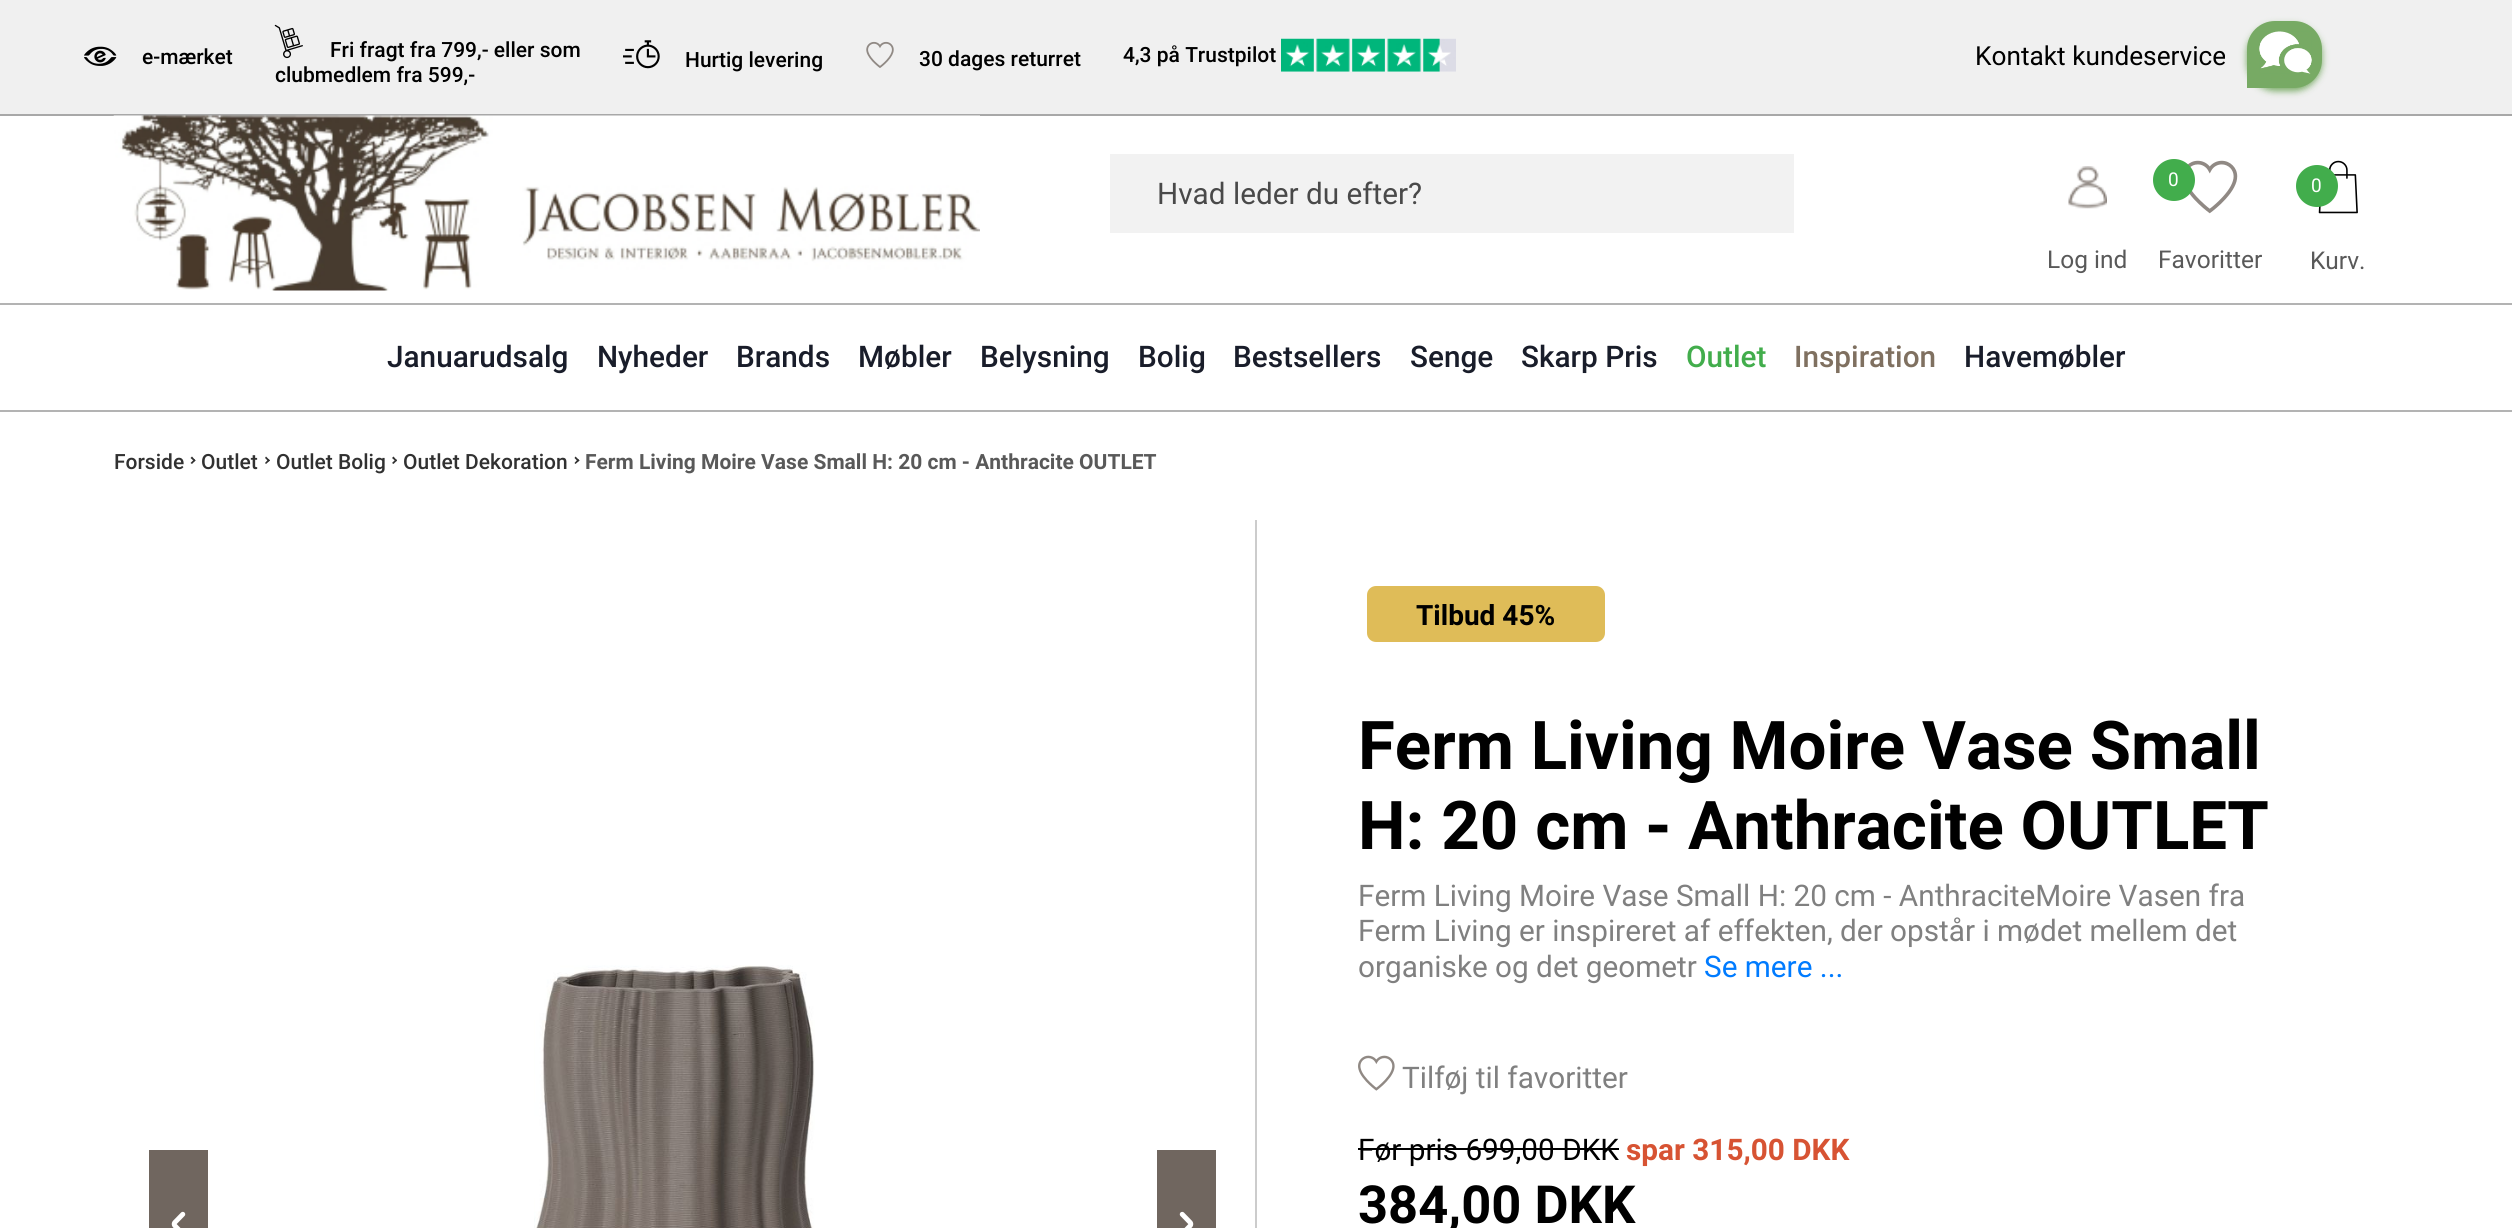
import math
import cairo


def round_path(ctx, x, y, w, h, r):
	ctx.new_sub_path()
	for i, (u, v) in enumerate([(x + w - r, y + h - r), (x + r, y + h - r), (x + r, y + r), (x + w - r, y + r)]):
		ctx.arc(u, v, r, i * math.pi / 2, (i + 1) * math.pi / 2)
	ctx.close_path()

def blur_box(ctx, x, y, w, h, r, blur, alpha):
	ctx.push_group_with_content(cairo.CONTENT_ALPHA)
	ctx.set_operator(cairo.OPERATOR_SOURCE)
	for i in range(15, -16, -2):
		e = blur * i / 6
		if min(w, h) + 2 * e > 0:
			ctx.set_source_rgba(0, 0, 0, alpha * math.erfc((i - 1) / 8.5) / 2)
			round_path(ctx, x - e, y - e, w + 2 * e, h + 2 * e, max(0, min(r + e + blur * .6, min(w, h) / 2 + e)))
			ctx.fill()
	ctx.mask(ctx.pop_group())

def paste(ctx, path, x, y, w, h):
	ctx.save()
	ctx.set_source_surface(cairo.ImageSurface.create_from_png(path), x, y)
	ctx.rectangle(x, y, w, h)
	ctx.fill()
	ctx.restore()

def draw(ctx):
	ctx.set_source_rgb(1, 1, 1)
	ctx.paint()
	ctx.set_source_rgb(0.941, 0.941, 0.941)
	ctx.rectangle(0, 0, 2512, 114)
	ctx.fill()
	ctx.set_source_rgb(0.659, 0.659, 0.659)
	ctx.rectangle(0, 114, 2512, 2)
	ctx.fill()
	paste(ctx, 'media/1.png', 84, 46, 33, 20)
	ctx.select_font_face('Roboto Medium')
	ctx.set_font_size(21)
	ctx.set_source_rgb(0, 0, 0)
	ctx.move_to(142, 64)
	ctx.show_text('e-mærket')
	paste(ctx, 'media/2.png', 274, 24, 29, 35)
	ctx.move_to(330, 57)
	ctx.show_text('Fri fragt fra 799,- eller som')
	ctx.move_to(275, 82)
	ctx.show_text('clubmedlem fra 599,-')
	paste(ctx, 'media/3.png', 623, 40, 37, 29)
	ctx.move_to(685, 67)
	ctx.show_text('Hurtig levering')
	paste(ctx, 'media/4.png', 866, 41, 28, 27)
	ctx.move_to(919, 66)
	ctx.show_text('30 dages returret')
	ctx.move_to(1123, 62)
	ctx.show_text('4,3 på Trustpilot')
	paste(ctx, 'media/5.png', 1281, 38, 175, 34)
	ctx.select_font_face('Roboto')
	ctx.set_font_size(26.25)
	ctx.move_to(1975, 65)
	ctx.show_text('Kontakt kundeservice')
	ctx.set_source_rgb(0.467, 0.667, 0.392)
	blur_box(ctx, 2247, 25, 75, 66, 28, 3.5, 1)
	ctx.set_source_rgb(0.467, 0.667, 0.392)
	ctx.new_path()
	ctx.move_to(2275, 21)
	ctx.line_to(2294, 21)
	ctx.curve_to(2309.5, 21, 2322, 33.5, 2322, 49)
	ctx.line_to(2322, 60)
	ctx.curve_to(2322, 75.5, 2309.5, 88, 2294, 88)
	ctx.line_to(2247, 88)
	ctx.line_to(2247, 49)
	ctx.curve_to(2247, 33.5, 2259.5, 21, 2275, 21)
	ctx.close_path()
	ctx.fill()
	paste(ctx, 'media/6.png', 2259, 31, 53, 43)
	ctx.set_source_rgb(0.702, 0.702, 0.702)
	ctx.rectangle(0, 303, 2512, 2)
	ctx.fill()
	paste(ctx, 'media/7.png', 113, 115, 867, 176)
	ctx.set_source_rgb(0.949, 0.949, 0.949)
	ctx.rectangle(1110, 154, 684, 79)
	ctx.fill()
	ctx.set_font_size(29.75)
	ctx.set_source_rgb(0.286, 0.286, 0.286)
	ctx.move_to(1157, 204)
	ctx.show_text('Hvad leder du efter?')
	paste(ctx, 'media/8.png', 2068, 166, 39, 43)
	ctx.set_font_size(24.5)
	ctx.set_source_rgb(0.349, 0.349, 0.349)
	ctx.move_to(2047, 268)
	ctx.show_text('Log ind')
	paste(ctx, 'media/9.png', 2187, 160, 51, 54)
	ctx.set_source_rgb(0.259, 0.678, 0.298)
	ctx.arc(2174, 180, 21, 0, 2 * math.pi)
	ctx.fill()
	ctx.set_font_size(19)
	ctx.set_source_rgb(1, 1, 1)
	ctx.move_to(2168, 186)
	ctx.show_text('0')
	ctx.set_font_size(24.5)
	ctx.set_source_rgb(0.349, 0.349, 0.349)
	ctx.move_to(2158, 268)
	ctx.show_text('Favoritter')
	paste(ctx, 'media/10.png', 2318, 160, 40, 54)
	ctx.set_source_rgb(0.259, 0.678, 0.298)
	ctx.arc(2317, 186, 21, 0, 2 * math.pi)
	ctx.fill()
	ctx.set_font_size(19)
	ctx.set_source_rgb(1, 1, 1)
	ctx.move_to(2311, 192)
	ctx.show_text('0')
	ctx.set_font_size(24.5)
	ctx.set_source_rgb(0.349, 0.349, 0.349)
	ctx.move_to(2310, 269)
	ctx.show_text('Kurv.')
	ctx.set_source_rgb(0.702, 0.702, 0.702)
	ctx.rectangle(0, 410, 2512, 2)
	ctx.fill()
	ctx.select_font_face('Roboto Medium')
	ctx.set_font_size(29.75)
	ctx.set_source_rgb(0.098, 0.114, 0.165)
	for x, y, s in [
		(387, 367, 'Januarudsalg'),
		(597, 367, 'Nyheder'),
		(736, 367, 'Brands'),
		(858, 367, 'Møbler'),
		(980, 367, 'Belysning'),
		(1138, 367, 'Bolig'),
		(1233, 367, 'Bestsellers'),
		(1410, 367, 'Senge'),
		(1521, 367, 'Skarp Pris'),
	]:
		ctx.move_to(x, y)
		ctx.show_text(s)
	ctx.set_source_rgb(0.259, 0.678, 0.298)
	ctx.move_to(1686, 367)
	ctx.show_text('Outlet')
	ctx.set_source_rgb(0.498, 0.439, 0.376)
	ctx.move_to(1794, 367)
	ctx.show_text('Inspiration')
	ctx.set_source_rgb(0.098, 0.114, 0.165)
	ctx.move_to(1964, 367)
	ctx.show_text('Havemøbler')
	ctx.set_font_size(21)
	ctx.set_source_rgb(0.192, 0.192, 0.192)
	ctx.move_to(114, 469)
	ctx.show_text('Forside')
	ctx.new_path()
	ctx.move_to(190.5, 458)
	ctx.line_to(192, 456.5)
	ctx.line_to(195.5, 460.5)
	ctx.line_to(194.5, 461.5)
	ctx.close_path()
	ctx.fill()
	ctx.new_path()
	ctx.move_to(190.5, 463)
	ctx.line_to(194.5, 459)
	ctx.line_to(195.5, 460.5)
	ctx.line_to(192, 464)
	ctx.close_path()
	ctx.fill()
	ctx.move_to(201, 469)
	ctx.show_text('Outlet')
	ctx.new_path()
	ctx.move_to(265, 458)
	ctx.line_to(266, 456.5)
	ctx.line_to(270, 460.5)
	ctx.line_to(268.5, 461.5)
	ctx.close_path()
	ctx.fill()
	ctx.new_path()
	ctx.move_to(265, 463)
	ctx.line_to(268.5, 459)
	ctx.line_to(270, 460.5)
	ctx.line_to(266, 464)
	ctx.close_path()
	ctx.fill()
	ctx.move_to(276, 469)
	ctx.show_text('Outlet Bolig')
	ctx.new_path()
	ctx.move_to(392, 458)
	ctx.line_to(393.5, 456.5)
	ctx.line_to(397, 460.5)
	ctx.line_to(396, 461.5)
	ctx.close_path()
	ctx.fill()
	ctx.new_path()
	ctx.move_to(392, 463)
	ctx.line_to(396, 459)
	ctx.line_to(397, 460.5)
	ctx.line_to(393.5, 464)
	ctx.close_path()
	ctx.fill()
	ctx.move_to(403, 469)
	ctx.show_text('Outlet Dekoration')
	ctx.new_path()
	ctx.move_to(574.5, 458)
	ctx.line_to(575.5, 456.5)
	ctx.line_to(579.5, 460.5)
	ctx.line_to(578, 461.5)
	ctx.close_path()
	ctx.fill()
	ctx.new_path()
	ctx.move_to(574.5, 463)
	ctx.line_to(578, 459)
	ctx.line_to(579.5, 460.5)
	ctx.line_to(575.5, 464)
	ctx.close_path()
	ctx.fill()
	ctx.select_font_face('Roboto', cairo.FONT_SLANT_NORMAL, cairo.FONT_WEIGHT_BOLD)
	ctx.set_source_rgb(0.349, 0.349, 0.349)
	ctx.move_to(585, 469)
	ctx.show_text('Ferm Living Moire Vase Small H: 20 cm - Anthracite OUTLET')
	ctx.set_source_rgb(0.8, 0.8, 0.8)
	ctx.rectangle(1255, 520, 2, 708)
	ctx.fill()
	paste(ctx, 'media/11.png', 534, 965, 281, 263)
	ctx.set_source_rgb(0.439, 0.4, 0.373)
	ctx.rectangle(149, 1150, 59, 78)
	ctx.fill()
	paste(ctx, 'media/12.png', 171, 1211, 15, 17)
	ctx.rectangle(1157, 1150, 59, 78)
	ctx.fill()
	paste(ctx, 'media/13.png', 1179, 1211, 15, 17)
	ctx.set_source_rgb(0.875, 0.737, 0.345)
	round_path(ctx, 1367, 586, 238, 56, 9)
	ctx.fill()
	ctx.set_font_size(28)
	ctx.set_source_rgb(0, 0, 0)
	ctx.move_to(1416, 625)
	ctx.show_text('Tilbud 45%')
	ctx.set_font_size(67.25)
	ctx.move_to(1358, 769)
	ctx.show_text('Ferm Living Moire Vase Small')
	ctx.move_to(1358, 849)
	ctx.show_text('H: 20 cm - Anthracite OUTLET')
	ctx.select_font_face('Roboto')
	ctx.set_font_size(29.75)
	ctx.set_source_rgb(0.502, 0.502, 0.502)
	for x, y, s in [
		(1358, 906, 'Ferm Living Moire Vase Small H: 20 cm - AnthraciteMoire Vasen fra'),
		(1358, 941, 'Ferm Living er inspireret af effekten, der opstår i mødet mellem det'),
		(1358, 977, 'organiske og det geometr'),
	]:
		ctx.move_to(x, y)
		ctx.show_text(s)
	ctx.set_source_rgb(0, 0.482, 1)
	ctx.move_to(1704, 977)
	ctx.show_text('Se mere ...')
	paste(ctx, 'media/14.png', 1358, 1055, 37, 36)
	ctx.set_source_rgb(0.502, 0.502, 0.502)
	ctx.move_to(1402, 1088)
	ctx.show_text('Tilføj til favoritter')
	ctx.set_source_rgb(0, 0, 0)
	ctx.move_to(1358, 1160)
	ctx.show_text('Før pris 699,00 DKK')
	ctx.rectangle(1358, 1148, 261, 2)
	ctx.fill()
	ctx.select_font_face('Roboto', cairo.FONT_SLANT_NORMAL, cairo.FONT_WEIGHT_BOLD)
	ctx.set_source_rgb(0.843, 0.325, 0.2)
	ctx.move_to(1626, 1160)
	ctx.show_text('spar 315,00 DKK')
	ctx.set_font_size(52.5)
	ctx.set_source_rgb(0, 0, 0)
	ctx.move_to(1358, 1223)
	ctx.show_text('384,00 DKK')


surface = cairo.ImageSurface(cairo.FORMAT_RGB24, 2512, 1228)
ctx = cairo.Context(surface)
options = cairo.FontOptions()
options.set_hint_metrics(cairo.HINT_METRICS_OFF)
options.set_hint_style(cairo.HINT_STYLE_NONE)
ctx.set_font_options(options)
ctx.set_miter_limit(4)
draw(ctx)
surface.write_to_png('image.png')
